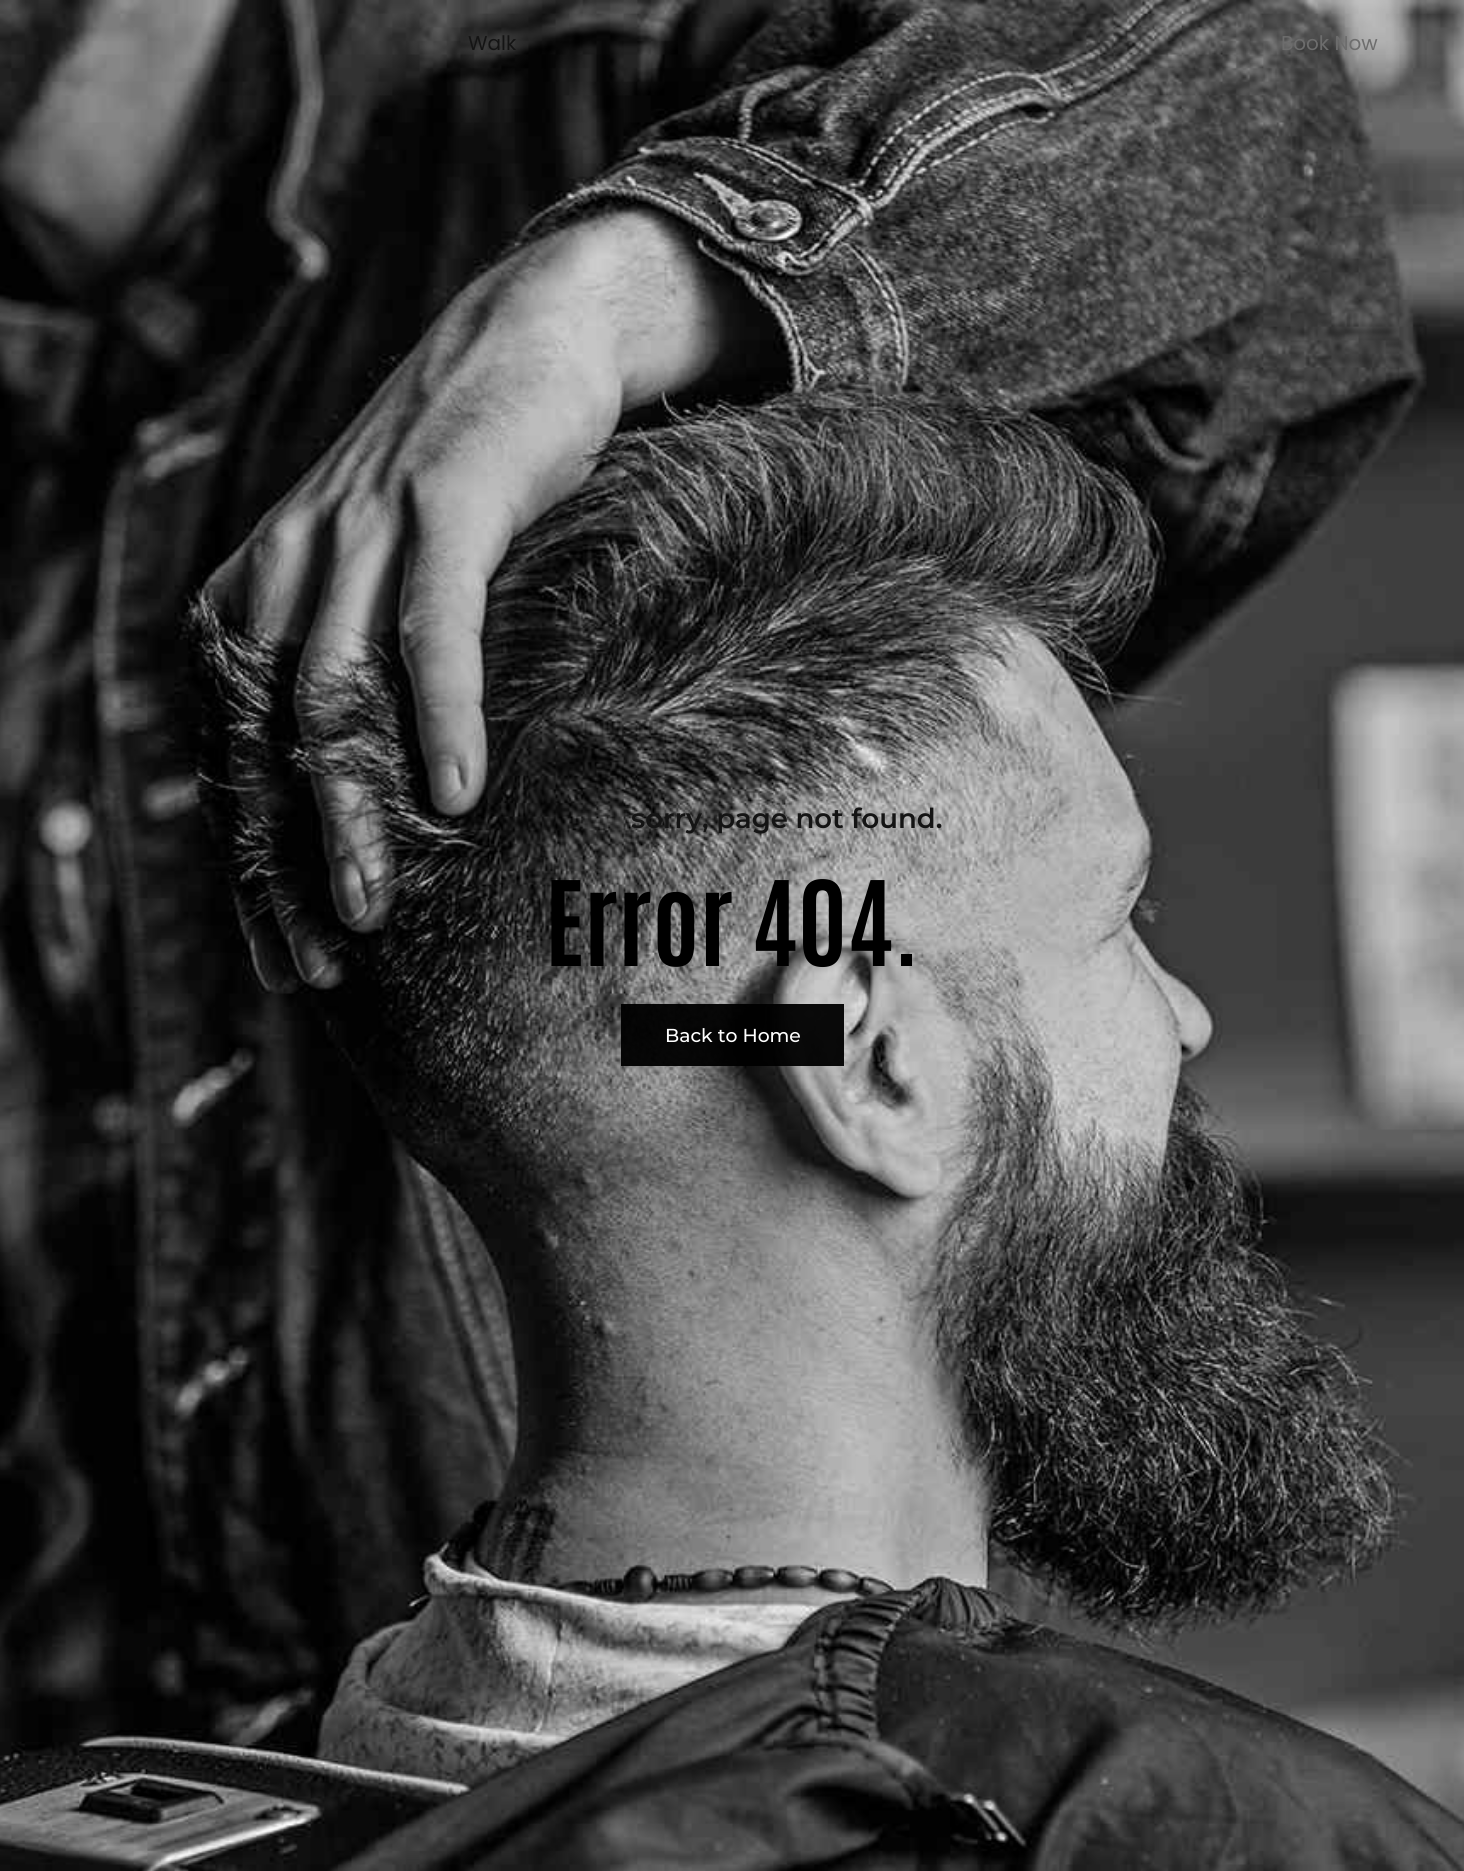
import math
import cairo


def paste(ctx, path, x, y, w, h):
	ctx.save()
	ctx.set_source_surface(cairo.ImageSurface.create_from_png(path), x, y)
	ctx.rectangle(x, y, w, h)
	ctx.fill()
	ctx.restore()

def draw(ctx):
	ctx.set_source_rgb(1, 1, 1)
	ctx.paint()
	paste(ctx, 'media/1.png', 0, 0, 1464, 1871)
	ctx.select_font_face('Poppins')
	ctx.set_font_size(20)
	ctx.set_source_rgb(0.082, 0.082, 0.082)
	ctx.move_to(468, 50)
	ctx.show_text('Walk')
	ctx.set_source_rgb(0.427, 0.427, 0.427)
	ctx.move_to(1281, 50)
	ctx.show_text('Book Now')
	ctx.select_font_face('Montserrat SemiBold')
	ctx.set_font_size(27.5)
	ctx.set_source_rgb(0.082, 0.082, 0.082)
	ctx.move_to(631, 828)
	ctx.show_text('sorry, page not found.')
	ctx.select_font_face('Antonio', cairo.FONT_SLANT_NORMAL, cairo.FONT_WEIGHT_BOLD)
	ctx.set_font_size(100)
	ctx.set_source_rgb(0, 0, 0)
	ctx.move_to(545, 966)
	ctx.show_text('Error 404.')
	ctx.set_source_rgba(0, 0, 0, 0.95)
	ctx.rectangle(621, 1004, 223, 62)
	ctx.fill()
	ctx.select_font_face('Montserrat Medium')
	ctx.set_font_size(18.75)
	ctx.set_source_rgb(1, 1, 1)
	ctx.move_to(665, 1042)
	ctx.show_text('Back to Home')


surface = cairo.ImageSurface(cairo.FORMAT_RGB24, 1464, 1871)
ctx = cairo.Context(surface)
options = cairo.FontOptions()
options.set_hint_metrics(cairo.HINT_METRICS_OFF)
options.set_hint_style(cairo.HINT_STYLE_NONE)
ctx.set_font_options(options)
ctx.set_miter_limit(4)
draw(ctx)
surface.write_to_png('image.png')
